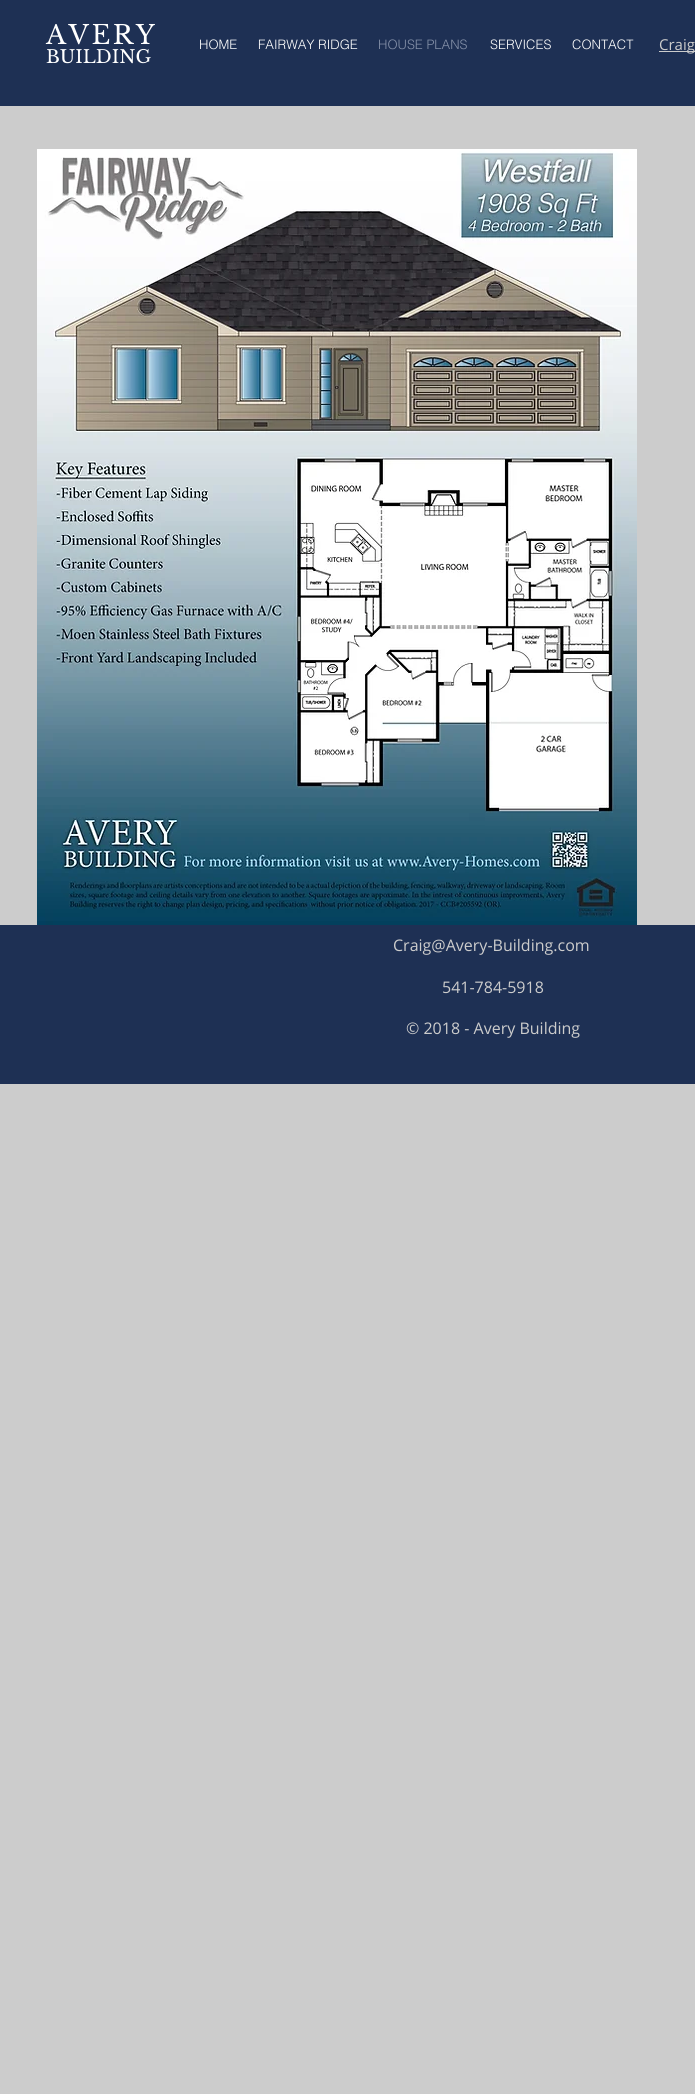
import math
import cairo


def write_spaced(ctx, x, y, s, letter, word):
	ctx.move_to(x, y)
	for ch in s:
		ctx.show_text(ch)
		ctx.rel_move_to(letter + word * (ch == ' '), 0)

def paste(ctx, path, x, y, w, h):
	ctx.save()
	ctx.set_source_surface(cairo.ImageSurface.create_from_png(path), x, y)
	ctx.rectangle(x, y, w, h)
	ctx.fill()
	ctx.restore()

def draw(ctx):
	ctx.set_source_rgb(0.8, 0.8, 0.8)
	ctx.paint()
	ctx.set_source_rgb(0.118, 0.188, 0.329)
	ctx.rectangle(0, 0, 695, 106)
	ctx.fill()
	ctx.select_font_face('Libre Baskerville')
	ctx.set_font_size(26)
	ctx.set_source_rgb(1, 1, 1)
	write_spaced(ctx, 46, 44, 'AVERY', 2.5, 0)
	ctx.set_font_size(18)
	ctx.move_to(46, 63)
	ctx.show_text('BUILDING')
	ctx.select_font_face('helvetica Light')
	ctx.set_font_size(13)
	ctx.move_to(199, 49)
	ctx.show_text('HOME')
	ctx.move_to(258, 49)
	ctx.show_text('FAIRWAY RIDGE')
	ctx.set_source_rgb(0.522, 0.569, 0.663)
	ctx.move_to(378, 49)
	ctx.show_text('HOUSE PLANS')
	ctx.set_source_rgb(1, 1, 1)
	ctx.move_to(490, 49)
	ctx.show_text('SERVICES')
	ctx.move_to(572, 49)
	ctx.show_text('CONTACT')
	ctx.set_source_rgb(0.8, 0.8, 0.8)
	ctx.rectangle(659, 51, 36, 1)
	ctx.fill()
	ctx.select_font_face('Open Sans')
	ctx.set_font_size(15)
	ctx.move_to(659, 50)
	ctx.show_text('Craig')
	paste(ctx, 'media/1.png', 37, 149, 600, 776)
	ctx.set_source_rgb(0.118, 0.188, 0.329)
	ctx.rectangle(0, 925, 695, 159)
	ctx.fill()
	ctx.set_font_size(16)
	ctx.set_source_rgb(0.8, 0.8, 0.8)
	for x, y, s in [
		(393, 951, 'Craig@Avery-Building.com'),
		(442, 993, '541-784-5918'),
		(406, 1034, '© 2018 - Avery Building'),
	]:
		ctx.move_to(x, y)
		ctx.show_text(s)


surface = cairo.ImageSurface(cairo.FORMAT_RGB24, 695, 2094)
ctx = cairo.Context(surface)
options = cairo.FontOptions()
options.set_hint_metrics(cairo.HINT_METRICS_OFF)
options.set_hint_style(cairo.HINT_STYLE_NONE)
ctx.set_font_options(options)
ctx.set_miter_limit(4)
draw(ctx)
surface.write_to_png('image.png')
